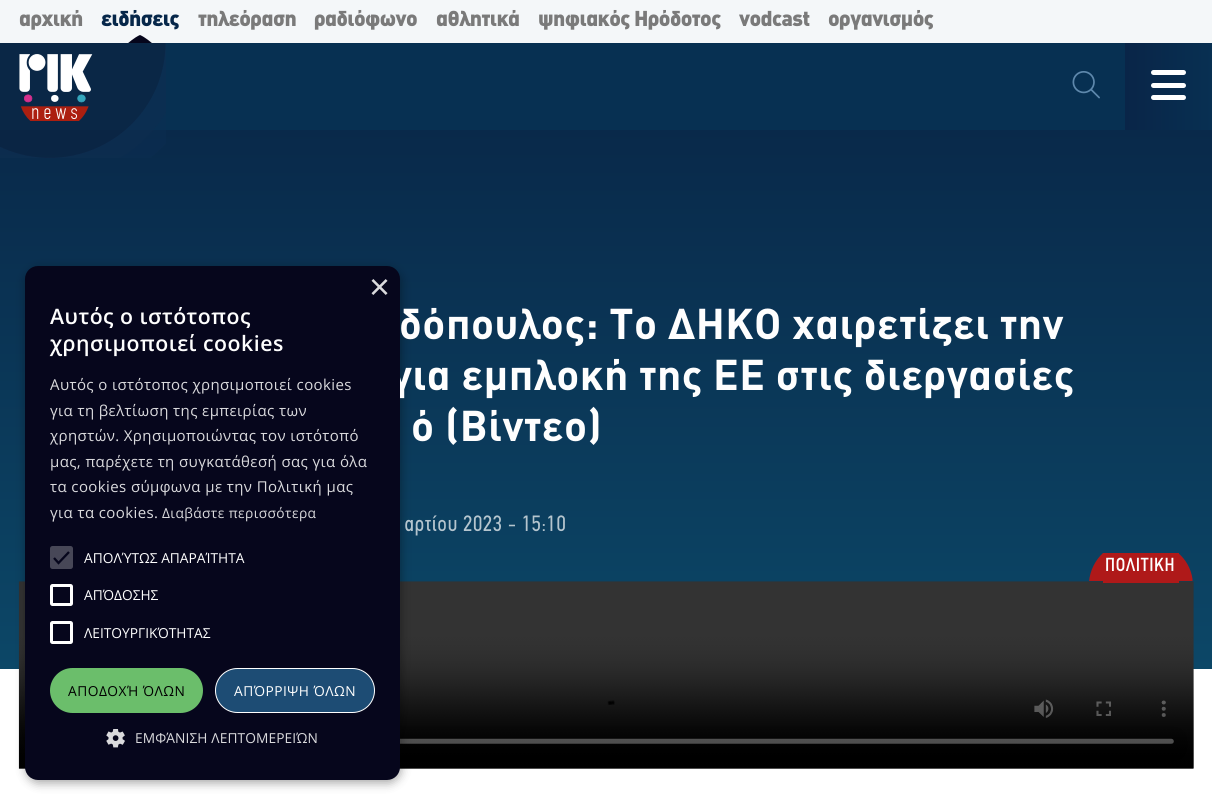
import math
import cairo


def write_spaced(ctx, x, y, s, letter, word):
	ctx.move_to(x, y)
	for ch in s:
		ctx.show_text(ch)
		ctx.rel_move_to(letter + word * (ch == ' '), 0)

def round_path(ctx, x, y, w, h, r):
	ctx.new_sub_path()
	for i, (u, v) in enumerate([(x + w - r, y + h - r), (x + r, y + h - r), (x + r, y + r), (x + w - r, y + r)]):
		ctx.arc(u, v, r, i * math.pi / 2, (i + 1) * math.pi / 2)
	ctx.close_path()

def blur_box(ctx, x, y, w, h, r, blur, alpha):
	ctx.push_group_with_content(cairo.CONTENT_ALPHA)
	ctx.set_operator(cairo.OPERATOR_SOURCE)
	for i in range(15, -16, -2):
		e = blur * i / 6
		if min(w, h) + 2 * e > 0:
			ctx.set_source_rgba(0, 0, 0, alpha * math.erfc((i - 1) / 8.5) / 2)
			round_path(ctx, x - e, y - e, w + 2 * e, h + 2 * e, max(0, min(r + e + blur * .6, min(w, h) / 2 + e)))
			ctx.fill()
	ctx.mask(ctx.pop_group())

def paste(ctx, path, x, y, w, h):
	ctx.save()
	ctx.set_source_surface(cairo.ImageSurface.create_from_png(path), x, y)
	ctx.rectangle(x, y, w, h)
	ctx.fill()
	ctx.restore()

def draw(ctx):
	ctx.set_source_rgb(1, 1, 1)
	ctx.paint()
	ctx.set_source_rgb(0.031, 0.188, 0.322)
	ctx.rectangle(0, 43, 1125, 87)
	ctx.fill()
	ctx.set_source_rgb(0.957, 0.965, 0.973)
	ctx.rectangle(0, 0, 1212, 43)
	ctx.fill()
	ctx.select_font_face('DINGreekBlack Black')
	ctx.set_font_size(21.25)
	ctx.set_source_rgb(0.478, 0.478, 0.478)
	write_spaced(ctx, 19, 26, 'αρχική', -0.6, 0)
	ctx.set_source_rgb(0.027, 0.153, 0.29)
	write_spaced(ctx, 101, 26, 'ειδήσεις', -0.6, 0)
	ctx.save()
	ctx.rectangle(128, 35, 25, 8)
	ctx.clip()
	ctx.set_source_rgb(0.027, 0.027, 0.11)
	ctx.new_path()
	ctx.move_to(140, 35)
	ctx.curve_to(135, 37, 127.5, 43.5, 127.5, 43.5)
	ctx.line_to(152.5, 43.5)
	ctx.curve_to(152.5, 43.5, 145, 37, 140, 35)
	ctx.close_path()
	ctx.fill()
	ctx.restore()
	ctx.set_source_rgb(0.478, 0.478, 0.478)
	for x, y, s in [
		(198, 26, 'τηλεόραση'),
		(314, 26, 'ραδιόφωνο'),
		(436, 26, 'αθλητικά'),
		(538, 26, 'ψηφιακός Ηρόδοτος'),
		(739, 26, 'vodcast'),
		(828, 26, 'οργανισμός'),
	]:
		write_spaced(ctx, x, y, s, -0.6, 0)
	gradient = cairo.LinearGradient(606, 129, 606, 669)
	gradient.add_color_stop_rgba(0, 0.035, 0.161, 0.29, 1)
	gradient.add_color_stop_rgba(1, 0.047, 0.278, 0.404, 1)
	ctx.set_source(gradient)
	ctx.rectangle(0, 130, 1212, 539)
	ctx.fill()
	paste(ctx, 'media/1.png', 0, 43, 166, 115)
	paste(ctx, 'media/2.png', 19, 54, 74, 67)
	paste(ctx, 'media/3.png', 1072, 71, 28, 28)
	gradient = cairo.LinearGradient(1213, 86, 1125, 86)
	gradient.add_color_stop_rgba(0, 0.031, 0.188, 0.322, 1)
	gradient.add_color_stop_rgba(1, 0.035, 0.145, 0.282, 1)
	ctx.set_source(gradient)
	ctx.rectangle(1125, 43, 87, 87)
	ctx.fill()
	ctx.set_source_rgb(1, 1, 1)
	round_path(ctx, 1151, 70, 35, 5, 2.5)
	ctx.fill()
	round_path(ctx, 1151, 83, 35, 5, 2.5)
	ctx.fill()
	round_path(ctx, 1151, 95, 35, 5, 2.5)
	ctx.fill()
	paste(ctx, 'media/5.png', 18, 581, 1176, 188)
	ctx.set_source_rgb(0, 0, 0)
	blur_box(ctx, 26, 269, 375, 514, 13, 5, 0.35)
	ctx.select_font_face('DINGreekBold', cairo.FONT_SLANT_NORMAL, cairo.FONT_WEIGHT_BOLD)
	ctx.set_font_size(42.5)
	ctx.set_source_rgb(0.996, 0.996, 0.996)
	write_spaced(ctx, 391, 390, 'για εμπλοκή της ΕΕ στις διεργασίες', 0.5, 0)
	ctx.set_source_rgb(0.027, 0.027, 0.11)
	round_path(ctx, 25, 266, 375, 514, 13)
	ctx.fill()
	ctx.select_font_face('Liberation Sans')
	ctx.set_font_size(36)
	ctx.set_source_rgb(0.855, 0.855, 0.867)
	ctx.move_to(369, 299)
	ctx.show_text('×')
	ctx.select_font_face('Open Sans SemiBold')
	ctx.set_font_size(21.25)
	ctx.set_source_rgb(0.996, 0.996, 0.996)
	write_spaced(ctx, 50, 324, 'Αυτός ο ιστότοπος', 0.5, 0)
	write_spaced(ctx, 50, 351, 'χρησιμοποιεί cookies', 0.5, 0)
	ctx.select_font_face('Open Sans')
	ctx.set_font_size(15)
	ctx.set_source_rgb(0.855, 0.855, 0.867)
	for x, y, s in [
		(50, 390, 'Αυτός ο ιστότοπος χρησιμοποιεί cookies'),
		(50, 416, 'για τη βελτίωση της εμπειρίας των'),
		(50, 441, 'χρηστών. Χρησιμοποιώντας τον ιστότοπό'),
		(50, 467, 'μας, παρέχετε τη συγκατάθεσή σας για όλα'),
		(50, 492, 'τα cookies σύμφωνα με την Πολιτική μας'),
		(50, 518, 'για τα cookies.'),
	]:
		write_spaced(ctx, x, y, s, 0.4, 0)
	ctx.set_font_size(13.75)
	write_spaced(ctx, 162, 518, 'Διαβάστε περισσότερα', 0.4, 0)
	ctx.set_source_rgb(0.278, 0.278, 0.341)
	round_path(ctx, 50, 546, 23, 23, 2.5)
	ctx.fill()
	ctx.new_path()
	ctx.move_to(54, 558)
	ctx.line_to(58.5, 563)
	ctx.line_to(69, 552)
	ctx.set_source_rgb(0.027, 0.027, 0.11)
	ctx.set_line_width(2.3)
	ctx.stroke()
	ctx.set_source_rgb(0.996, 0.996, 0.996)
	ctx.move_to(84, 563)
	ctx.show_text('ΑΠΟΛΎΤΩΣ ΑΠΑΡΑΊΤΗΤΑ')
	round_path(ctx, 51.5, 585.5, 20, 19, 1)
	ctx.set_source_rgb(1, 1, 1)
	ctx.set_line_width(3)
	ctx.stroke()
	ctx.set_source_rgb(0.996, 0.996, 0.996)
	ctx.move_to(84, 600)
	ctx.show_text('ΑΠΌΔΟΣΗΣ')
	round_path(ctx, 51.5, 622.5, 20, 20, 1)
	ctx.set_source_rgb(1, 1, 1)
	ctx.stroke()
	ctx.set_source_rgb(0.996, 0.996, 0.996)
	ctx.move_to(84, 638)
	ctx.show_text('ΛΕΙΤΟΥΡΓΙΚΌΤΗΤΑΣ')
	ctx.set_source_rgb(0.42, 0.745, 0.42)
	round_path(ctx, 50, 668, 153, 45, 22.5)
	ctx.fill()
	ctx.set_source_rgb(0, 0, 0)
	write_spaced(ctx, 68, 696, 'ΑΠΟΔΟΧΉ ΌΛΩΝ', 0.5, 0)
	ctx.set_source_rgb(0.114, 0.298, 0.455)
	round_path(ctx, 215.5, 668.5, 159, 44, 22)
	ctx.fill_preserve()
	ctx.set_source_rgb(1, 1, 1)
	ctx.set_line_width(1)
	ctx.stroke()
	ctx.set_source_rgb(0.996, 0.996, 0.996)
	write_spaced(ctx, 234, 696, 'ΑΠΌΡΡΙΨΗ ΌΛΩΝ', 0.5, 0)
	paste(ctx, 'media/4.png', 106, 729, 19, 19)
	ctx.set_source_rgb(0.855, 0.855, 0.867)
	write_spaced(ctx, 135, 743, 'ΕΜΦΆΝΙΣΗ ΛΕΠΤΟΜΕΡΕΙΏΝ', 0.1, 0)
	ctx.select_font_face('DINGreekBold', cairo.FONT_SLANT_NORMAL, cairo.FONT_WEIGHT_BOLD)
	ctx.set_font_size(42.5)
	ctx.set_source_rgb(0.996, 0.996, 0.996)
	write_spaced(ctx, 399, 339, 'δόπουλος: Το ΔΗΚΟ χαιρετίζει την', 0.5, 0)
	write_spaced(ctx, 411, 441, 'ό (Βίντεο)', 0.5, 0)
	ctx.select_font_face('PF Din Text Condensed')
	ctx.set_font_size(22.25)
	ctx.set_source_rgb(0.71, 0.773, 0.808)
	write_spaced(ctx, 404, 531, 'αρτίου 2023 - 15:10', 0.6, 0)
	ctx.set_source_rgb(0.686, 0.098, 0.098)
	ctx.rectangle(1103, 553, 76, 30)
	ctx.fill()
	ctx.save()
	ctx.rectangle(1089, 553, 15, 28)
	ctx.clip()
	ctx.new_path()
	ctx.move_to(1089, 582)
	ctx.line_to(1103.5, 582)
	ctx.line_to(1103.5, 553)
	ctx.line_to(1103, 553)
	ctx.curve_to(1095.5, 560, 1090, 570, 1089, 582)
	ctx.close_path()
	ctx.fill()
	ctx.restore()
	ctx.select_font_face('PF Din Text Condensed Medium')
	ctx.set_font_size(19)
	ctx.set_source_rgb(0.996, 0.996, 0.996)
	write_spaced(ctx, 1105, 571, 'ΠΟΛΙΤΙΚΗ', 0.6, 0)
	ctx.save()
	ctx.rectangle(1179, 553, 15, 28)
	ctx.clip()
	ctx.set_source_rgb(0.686, 0.098, 0.098)
	ctx.new_path()
	ctx.move_to(1192.5, 582)
	ctx.line_to(1177.5, 582)
	ctx.line_to(1177.5, 553)
	ctx.line_to(1178, 553)
	ctx.curve_to(1185.5, 559, 1191, 568.5, 1192.5, 579)
	ctx.close_path()
	ctx.fill()
	ctx.restore()


surface = cairo.ImageSurface(cairo.FORMAT_RGB24, 1212, 804)
ctx = cairo.Context(surface)
options = cairo.FontOptions()
options.set_hint_metrics(cairo.HINT_METRICS_OFF)
options.set_hint_style(cairo.HINT_STYLE_NONE)
ctx.set_font_options(options)
ctx.set_miter_limit(4)
draw(ctx)
surface.write_to_png('image.png')
